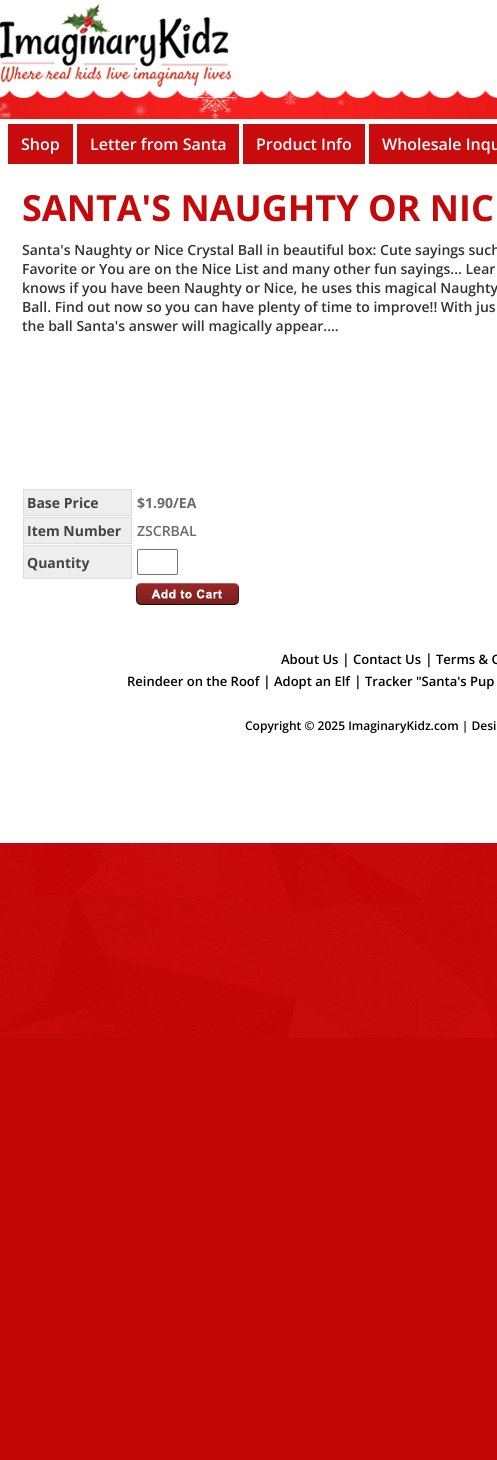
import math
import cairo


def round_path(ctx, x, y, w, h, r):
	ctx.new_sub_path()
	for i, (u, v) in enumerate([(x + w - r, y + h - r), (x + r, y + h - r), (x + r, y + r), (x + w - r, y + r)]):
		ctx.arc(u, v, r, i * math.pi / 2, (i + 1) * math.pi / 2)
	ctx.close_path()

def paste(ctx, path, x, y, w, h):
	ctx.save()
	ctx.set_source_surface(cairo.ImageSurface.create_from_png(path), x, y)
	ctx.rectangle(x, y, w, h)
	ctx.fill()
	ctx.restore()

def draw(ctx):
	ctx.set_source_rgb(0.757, 0.024, 0.027)
	ctx.paint()
	paste(ctx, 'media/1.png', 0, 90, 497, 948)
	paste(ctx, 'media/2.png', 0, 0, 497, 98)
	paste(ctx, 'media/3.png', 0, 3, 231, 84)
	ctx.set_source_rgb(1, 1, 1)
	ctx.rectangle(0, 119, 497, 49)
	ctx.fill()
	ctx.set_source_rgb(0.784, 0.043, 0.047)
	ctx.rectangle(8, 124, 65, 40)
	ctx.fill()
	ctx.select_font_face('Open Sans SemiBold')
	ctx.set_font_size(16)
	ctx.set_source_rgb(1, 1, 1)
	ctx.move_to(21, 150)
	ctx.show_text('Shop')
	ctx.set_source_rgb(0.784, 0.043, 0.047)
	ctx.rectangle(77, 124, 162, 40)
	ctx.fill()
	ctx.set_source_rgb(1, 1, 1)
	ctx.move_to(90, 150)
	ctx.show_text('Letter from Santa')
	ctx.set_source_rgb(0.784, 0.043, 0.047)
	ctx.rectangle(243, 124, 122, 40)
	ctx.fill()
	ctx.set_source_rgb(1, 1, 1)
	ctx.move_to(256, 150)
	ctx.show_text('Product Info')
	ctx.set_source_rgb(0.784, 0.043, 0.047)
	ctx.rectangle(369, 124, 128, 40)
	ctx.fill()
	ctx.set_source_rgb(1, 1, 1)
	ctx.move_to(382, 150)
	ctx.show_text('Wholesale Inqu')
	ctx.rectangle(0, 168, 497, 675)
	ctx.fill()
	ctx.select_font_face('Open Sans', cairo.FONT_SLANT_NORMAL, cairo.FONT_WEIGHT_BOLD)
	ctx.set_font_size(36)
	ctx.set_source_rgb(0.773, 0.035, 0.039)
	ctx.move_to(22, 221)
	ctx.show_text('SANTA\'S NAUGHTY OR NIC')
	ctx.select_font_face('Open Sans SemiBold')
	ctx.set_font_size(14)
	ctx.set_source_rgb(0.2, 0.2, 0.2)
	for x, y, s in [
		(22, 255, 'Santa\'s Naughty or Nice Crystal Ball in beautiful box: Cute sayings such'),
		(22, 274, 'Favorite or You are on the Nice List and many other fun sayings... Lear'),
		(22, 293, 'knows if you have been Naughty or Nice, he uses this magical Naughty'),
		(22, 312, 'Ball. Find out now so you can have plenty of time to improve!! With jus'),
		(22, 331, 'the ball Santa\'s answer will magically appear....'),
	]:
		ctx.move_to(x, y)
		ctx.show_text(s)
	ctx.set_source_rgb(0.933, 0.933, 0.933)
	ctx.rectangle(23.5, 489.5, 108, 26)
	ctx.fill_preserve()
	ctx.set_source_rgb(0.867, 0.867, 0.867)
	ctx.set_line_width(1)
	ctx.stroke()
	ctx.select_font_face('Open Sans', cairo.FONT_SLANT_NORMAL, cairo.FONT_WEIGHT_BOLD)
	ctx.set_source_rgb(0.267, 0.267, 0.267)
	ctx.move_to(27, 508)
	ctx.show_text('Base Price')
	ctx.set_source_rgb(0.42, 0.412, 0.412)
	ctx.move_to(137, 508)
	ctx.show_text('$1.90/EA')
	ctx.set_source_rgb(0.933, 0.933, 0.933)
	ctx.rectangle(23.5, 517.5, 108, 26)
	ctx.fill_preserve()
	ctx.set_source_rgb(0.867, 0.867, 0.867)
	ctx.stroke()
	ctx.set_source_rgb(0.267, 0.267, 0.267)
	ctx.move_to(27, 536)
	ctx.show_text('Item Number')
	ctx.select_font_face('Open Sans SemiBold')
	ctx.set_source_rgb(0.42, 0.412, 0.412)
	ctx.move_to(137, 536)
	ctx.show_text('ZSCRBAL')
	ctx.set_source_rgb(0.933, 0.933, 0.933)
	ctx.rectangle(23.5, 545.5, 108, 33)
	ctx.fill_preserve()
	ctx.set_source_rgb(0.867, 0.867, 0.867)
	ctx.stroke()
	ctx.select_font_face('Open Sans', cairo.FONT_SLANT_NORMAL, cairo.FONT_WEIGHT_BOLD)
	ctx.set_source_rgb(0.267, 0.267, 0.267)
	ctx.move_to(27, 568)
	ctx.show_text('Quantity')
	round_path(ctx, 137.5, 549.5, 40, 25, 1.5)
	ctx.set_source_rgb(0.463, 0.463, 0.463)
	ctx.stroke()
	paste(ctx, 'media/4.png', 136, 583, 103, 22)
	ctx.select_font_face('Open Sans SemiBold')
	ctx.set_font_size(13)
	ctx.set_source_rgb(0, 0, 0)
	ctx.move_to(281, 664)
	ctx.show_text('About Us')
	ctx.set_font_size(14)
	ctx.move_to(342, 664)
	ctx.show_text('|')
	ctx.set_font_size(13)
	ctx.move_to(353, 664)
	ctx.show_text('Contact Us')
	ctx.set_font_size(14)
	ctx.move_to(425, 664)
	ctx.show_text('|')
	ctx.set_font_size(13)
	ctx.move_to(436, 664)
	ctx.show_text('Terms & C')
	ctx.move_to(127, 686)
	ctx.show_text('Reindeer on the Roof')
	ctx.set_font_size(14)
	ctx.move_to(263, 686)
	ctx.show_text('|')
	ctx.set_font_size(13)
	ctx.move_to(274, 686)
	ctx.show_text('Adopt an Elf')
	ctx.set_font_size(14)
	ctx.move_to(354, 686)
	ctx.show_text('|')
	ctx.set_font_size(13)
	ctx.move_to(365, 686)
	ctx.show_text('Tracker "Santa\'s Pup')
	ctx.set_font_size(12)
	ctx.move_to(245, 730)
	ctx.show_text('Copyright © 2025 ImaginaryKidz.com | Desi')


surface = cairo.ImageSurface(cairo.FORMAT_RGB24, 497, 1460)
ctx = cairo.Context(surface)
options = cairo.FontOptions()
options.set_hint_metrics(cairo.HINT_METRICS_OFF)
options.set_hint_style(cairo.HINT_STYLE_NONE)
ctx.set_font_options(options)
ctx.set_miter_limit(4)
draw(ctx)
surface.write_to_png('image.png')
